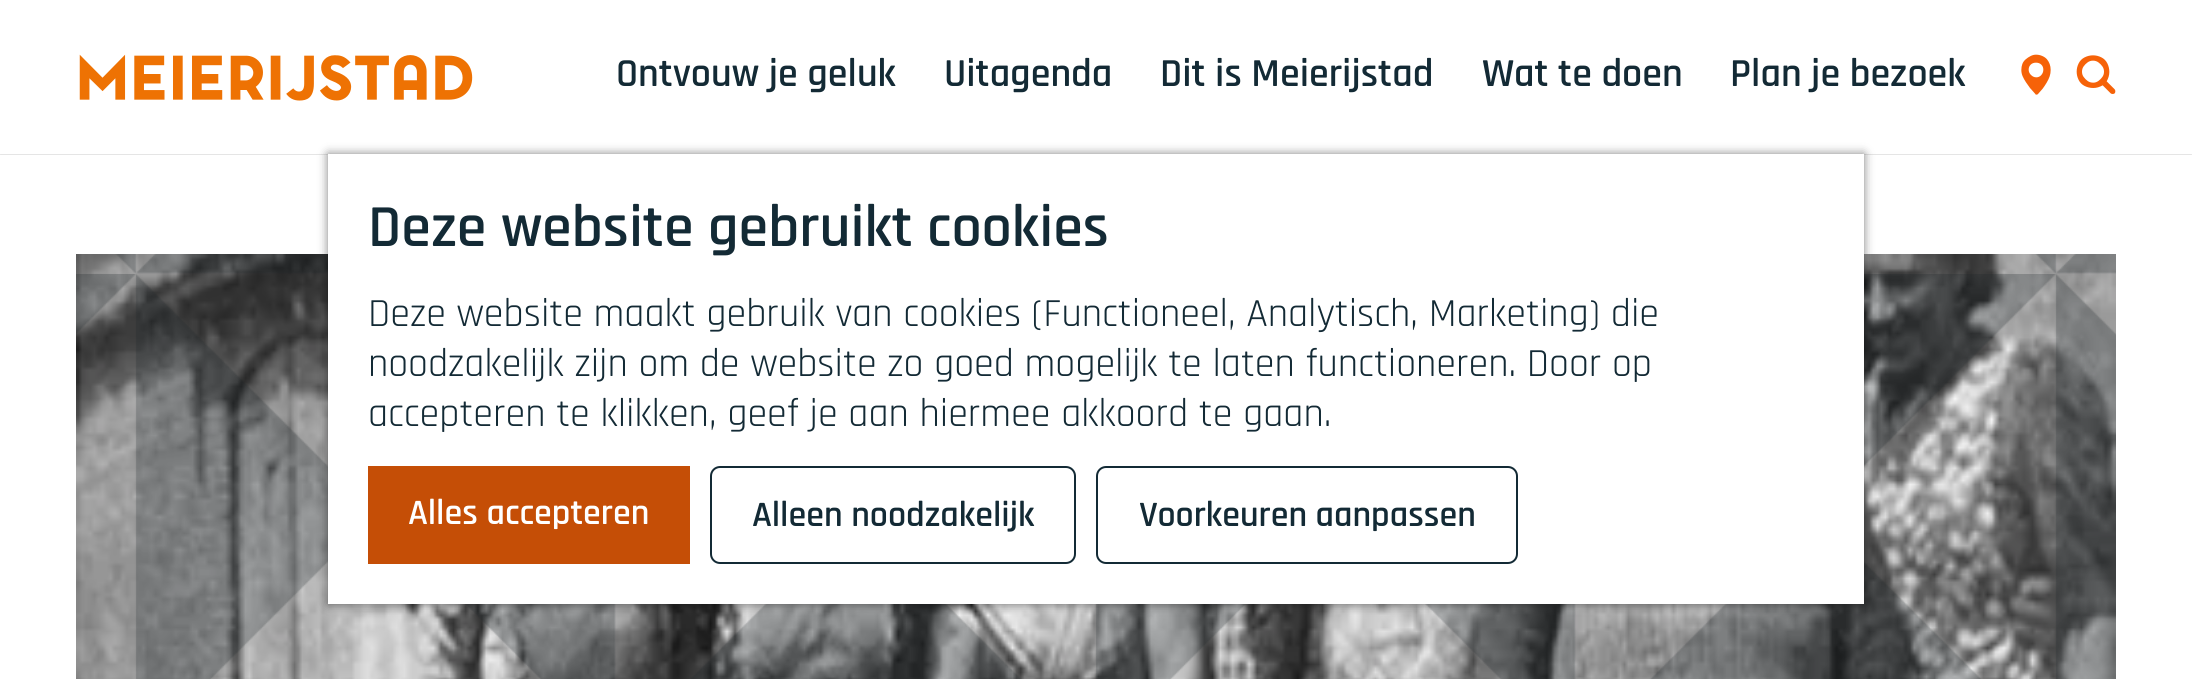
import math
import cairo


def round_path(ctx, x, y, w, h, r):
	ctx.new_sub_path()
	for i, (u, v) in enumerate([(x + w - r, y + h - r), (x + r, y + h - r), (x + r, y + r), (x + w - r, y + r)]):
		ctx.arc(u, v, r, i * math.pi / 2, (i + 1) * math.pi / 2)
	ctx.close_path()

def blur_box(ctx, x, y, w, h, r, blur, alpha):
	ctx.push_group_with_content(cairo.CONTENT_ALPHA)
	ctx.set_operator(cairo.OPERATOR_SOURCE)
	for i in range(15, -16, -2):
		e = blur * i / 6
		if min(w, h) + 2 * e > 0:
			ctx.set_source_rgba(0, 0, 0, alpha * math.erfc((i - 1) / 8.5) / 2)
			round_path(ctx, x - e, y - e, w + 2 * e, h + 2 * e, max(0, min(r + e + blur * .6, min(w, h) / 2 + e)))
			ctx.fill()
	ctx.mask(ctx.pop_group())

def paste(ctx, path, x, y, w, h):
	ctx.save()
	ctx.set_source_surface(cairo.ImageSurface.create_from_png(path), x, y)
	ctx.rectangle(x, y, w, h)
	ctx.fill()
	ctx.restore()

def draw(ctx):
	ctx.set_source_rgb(1, 1, 1)
	ctx.paint()
	ctx.save()
	ctx.rectangle(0, 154, 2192, 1)
	ctx.clip()
	ctx.set_source_rgb(0, 0, 0)
	blur_box(ctx, 0, 0, 2192, 154, 0, 1, 0.3)
	ctx.restore()
	paste(ctx, 'media/1.png', 79, 54, 394, 47)
	ctx.select_font_face('Rajdhani SemiBold')
	ctx.set_font_size(40)
	ctx.set_source_rgb(0.075, 0.165, 0.208)
	for x, y, s in [
		(616, 86, 'Ontvouw je geluk'),
		(944, 86, 'Uitagenda'),
		(1160, 86, 'Dit is Meierijstad'),
		(1482, 86, 'Wat te doen'),
		(1730, 86, 'Plan je bezoek'),
	]:
		ctx.move_to(x, y)
		ctx.show_text(s)
	paste(ctx, 'media/2.png', 2021, 54, 30, 41)
	paste(ctx, 'media/3.png', 2076, 55, 40, 39)
	paste(ctx, 'media/4.png', 76, 254, 2040, 425)
	paste(ctx, 'media/5.png', 76, 254, 2040, 425)
	ctx.set_source_rgb(0, 0, 0)
	blur_box(ctx, 328, 154, 1536, 450, 0, 5, 0.5)
	ctx.set_source_rgb(1, 1, 1)
	ctx.rectangle(328, 154, 1536, 450)
	ctx.fill()
	ctx.set_font_size(60)
	ctx.set_source_rgb(0.075, 0.165, 0.208)
	ctx.move_to(368, 246)
	ctx.show_text('Deze website gebruikt cookies')
	ctx.select_font_face('Rajdhani')
	ctx.set_font_size(40)
	for x, y, s in [
		(368, 326, 'Deze website maakt gebruik van cookies (Functioneel, Analytisch, Marketing) die'),
		(368, 376, 'noodzakelijk zijn om de website zo goed mogelijk te laten functioneren. Door op'),
		(368, 426, 'accepteren te klikken, geef je aan hiermee akkoord te gaan.'),
	]:
		ctx.move_to(x, y)
		ctx.show_text(s)
	ctx.set_source_rgb(0.773, 0.306, 0.024)
	ctx.rectangle(368, 466, 322, 98)
	ctx.fill()
	ctx.select_font_face('Rajdhani SemiBold')
	ctx.set_font_size(36)
	ctx.set_source_rgb(1, 1, 1)
	ctx.move_to(408, 524)
	ctx.show_text('Alles accepteren')
	round_path(ctx, 711, 467, 364, 96, 9)
	ctx.set_source_rgb(0.075, 0.165, 0.208)
	ctx.stroke()
	ctx.move_to(752, 526)
	ctx.show_text('Alleen noodzakelijk')
	round_path(ctx, 1097, 467, 420, 96, 9)
	ctx.stroke()
	ctx.move_to(1139, 526)
	ctx.show_text('Voorkeuren aanpassen')


surface = cairo.ImageSurface(cairo.FORMAT_RGB24, 2192, 679)
ctx = cairo.Context(surface)
options = cairo.FontOptions()
options.set_hint_metrics(cairo.HINT_METRICS_OFF)
options.set_hint_style(cairo.HINT_STYLE_NONE)
ctx.set_font_options(options)
ctx.set_miter_limit(4)
draw(ctx)
surface.write_to_png('image.png')
